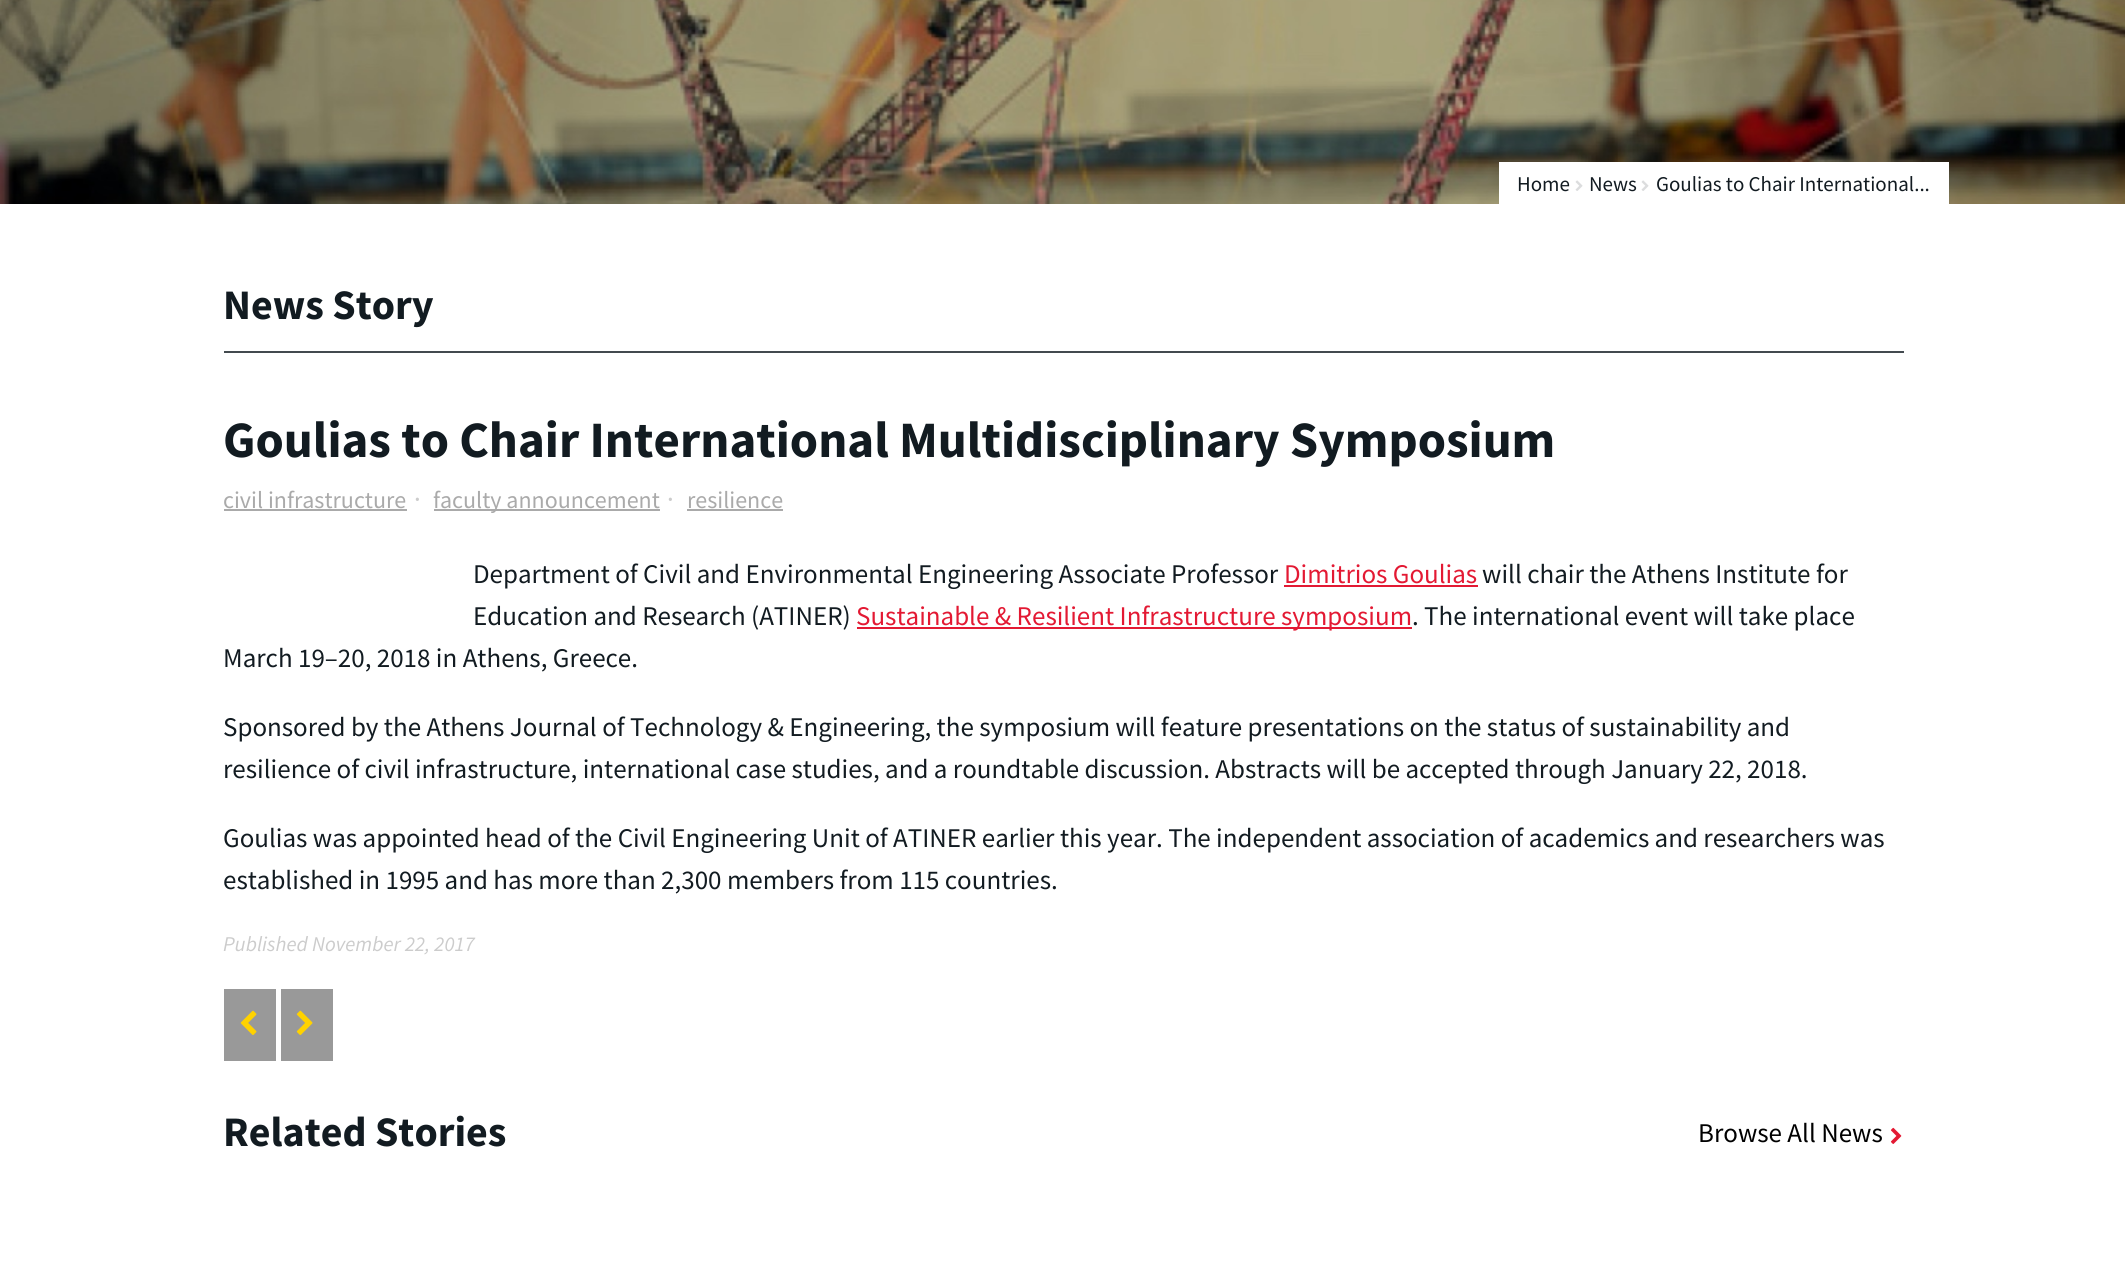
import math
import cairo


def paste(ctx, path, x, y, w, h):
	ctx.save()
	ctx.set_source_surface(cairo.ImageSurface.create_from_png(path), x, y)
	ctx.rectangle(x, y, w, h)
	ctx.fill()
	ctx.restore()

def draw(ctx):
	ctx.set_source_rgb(1, 1, 1)
	ctx.paint()
	paste(ctx, 'media/1.png', 0, 0, 2125, 204)
	ctx.set_source_rgb(1, 1, 1)
	ctx.rectangle(1499, 162, 450, 42)
	ctx.fill()
	ctx.select_font_face('Source Sans Pro')
	ctx.set_font_size(21)
	ctx.set_source_rgb(0.071, 0.106, 0.129)
	ctx.move_to(1517, 191)
	ctx.show_text('Home')
	paste(ctx, 'media/2.png', 1575, 180, 8, 11)
	ctx.move_to(1589, 191)
	ctx.show_text('News')
	paste(ctx, 'media/2.png', 1641, 180, 8, 11)
	ctx.move_to(1656, 191)
	ctx.show_text('Goulias to Chair International...')
	ctx.set_source_rgb(0.263, 0.29, 0.31)
	ctx.rectangle(224, 351, 1680, 2)
	ctx.fill()
	ctx.select_font_face('Source Sans Pro', cairo.FONT_SLANT_NORMAL, cairo.FONT_WEIGHT_BOLD)
	ctx.set_font_size(42)
	ctx.set_source_rgb(0.071, 0.106, 0.129)
	ctx.move_to(223, 319)
	ctx.show_text('News Story')
	ctx.set_font_size(51)
	ctx.move_to(223, 457)
	ctx.show_text('Goulias to Chair International Multidisciplinary Symposium')
	ctx.select_font_face('Source Sans Pro')
	ctx.set_font_size(24)
	ctx.set_source_rgb(0.667, 0.667, 0.667)
	ctx.move_to(223, 508)
	ctx.show_text('civil infrastructure')
	ctx.rectangle(224, 509, 183, 2)
	ctx.fill()
	ctx.set_font_size(27)
	ctx.set_source_rgb(0.8, 0.8, 0.8)
	ctx.move_to(414, 508)
	ctx.show_text('·')
	ctx.set_source_rgb(0.667, 0.667, 0.667)
	ctx.rectangle(434, 509, 226, 2)
	ctx.fill()
	ctx.set_font_size(24)
	ctx.move_to(433, 508)
	ctx.show_text('faculty announcement')
	ctx.set_font_size(27)
	ctx.set_source_rgb(0.8, 0.8, 0.8)
	ctx.move_to(667, 508)
	ctx.show_text('·')
	ctx.set_font_size(24)
	ctx.set_source_rgb(0.667, 0.667, 0.667)
	ctx.move_to(687, 508)
	ctx.show_text('resilience')
	ctx.rectangle(687, 509, 96, 2)
	ctx.fill()
	ctx.set_font_size(27)
	ctx.set_source_rgb(0.071, 0.106, 0.129)
	ctx.move_to(473, 583)
	ctx.show_text('Department of Civil and Environmental Engineering Associate Professor')
	ctx.set_source_rgb(0.89, 0.098, 0.2)
	ctx.move_to(1284, 583)
	ctx.show_text('Dimitrios Goulias')
	ctx.rectangle(1284, 585, 194, 2)
	ctx.fill()
	ctx.set_source_rgb(0.071, 0.106, 0.129)
	ctx.move_to(1482, 583)
	ctx.show_text('will chair the Athens Institute for')
	ctx.move_to(473, 625)
	ctx.show_text('Education and Research (ATINER)')
	ctx.set_source_rgb(0.89, 0.098, 0.2)
	ctx.rectangle(857, 627, 555, 2)
	ctx.fill()
	ctx.move_to(856, 625)
	ctx.show_text('Sustainable & Resilient Infrastructure symposium')
	ctx.set_source_rgb(0.071, 0.106, 0.129)
	for x, y, s in [
		(1412, 625, '. The international event will take place'),
		(223, 667, 'March 19–20, 2018 in Athens, Greece.'),
		(223, 736, 'Sponsored by the Athens Journal of Technology & Engineering, the symposium will feature presentations on the status of sustainability and'),
		(223, 778, 'resilience of civil infrastructure, international case studies, and a roundtable discussion. Abstracts will be accepted through January 22, 2018.'),
		(223, 847, 'Goulias was appointed head of the Civil Engineering Unit of ATINER earlier this year. The independent association of academics and researchers was'),
		(223, 889, 'established in 1995 and has more than 2,300 members from 115 countries.'),
	]:
		ctx.move_to(x, y)
		ctx.show_text(s)
	ctx.select_font_face('Source Sans Pro', cairo.FONT_SLANT_ITALIC)
	ctx.set_font_size(21)
	ctx.set_source_rgb(0.8, 0.8, 0.8)
	ctx.move_to(223, 951)
	ctx.show_text('Published November 22, 2017')
	ctx.set_source_rgb(0.6, 0.6, 0.6)
	ctx.rectangle(224, 989, 52, 72)
	ctx.fill()
	paste(ctx, 'media/3.png', 240, 1010, 17, 25)
	ctx.rectangle(281, 989, 52, 72)
	ctx.fill()
	paste(ctx, 'media/4.png', 296, 1010, 17, 25)
	ctx.select_font_face('Source Sans Pro', cairo.FONT_SLANT_NORMAL, cairo.FONT_WEIGHT_BOLD)
	ctx.set_font_size(42)
	ctx.set_source_rgb(0.071, 0.106, 0.129)
	ctx.move_to(223, 1146)
	ctx.show_text('Related Stories')
	ctx.select_font_face('Source Sans Pro')
	ctx.set_font_size(27)
	ctx.set_source_rgb(0, 0, 0)
	ctx.move_to(1698, 1142)
	ctx.show_text('Browse All News')
	paste(ctx, 'media/5.png', 1890, 1127, 12, 17)


surface = cairo.ImageSurface(cairo.FORMAT_RGB24, 2125, 1270)
ctx = cairo.Context(surface)
options = cairo.FontOptions()
options.set_hint_metrics(cairo.HINT_METRICS_OFF)
options.set_hint_style(cairo.HINT_STYLE_NONE)
ctx.set_font_options(options)
ctx.set_miter_limit(4)
draw(ctx)
surface.write_to_png('image.png')
